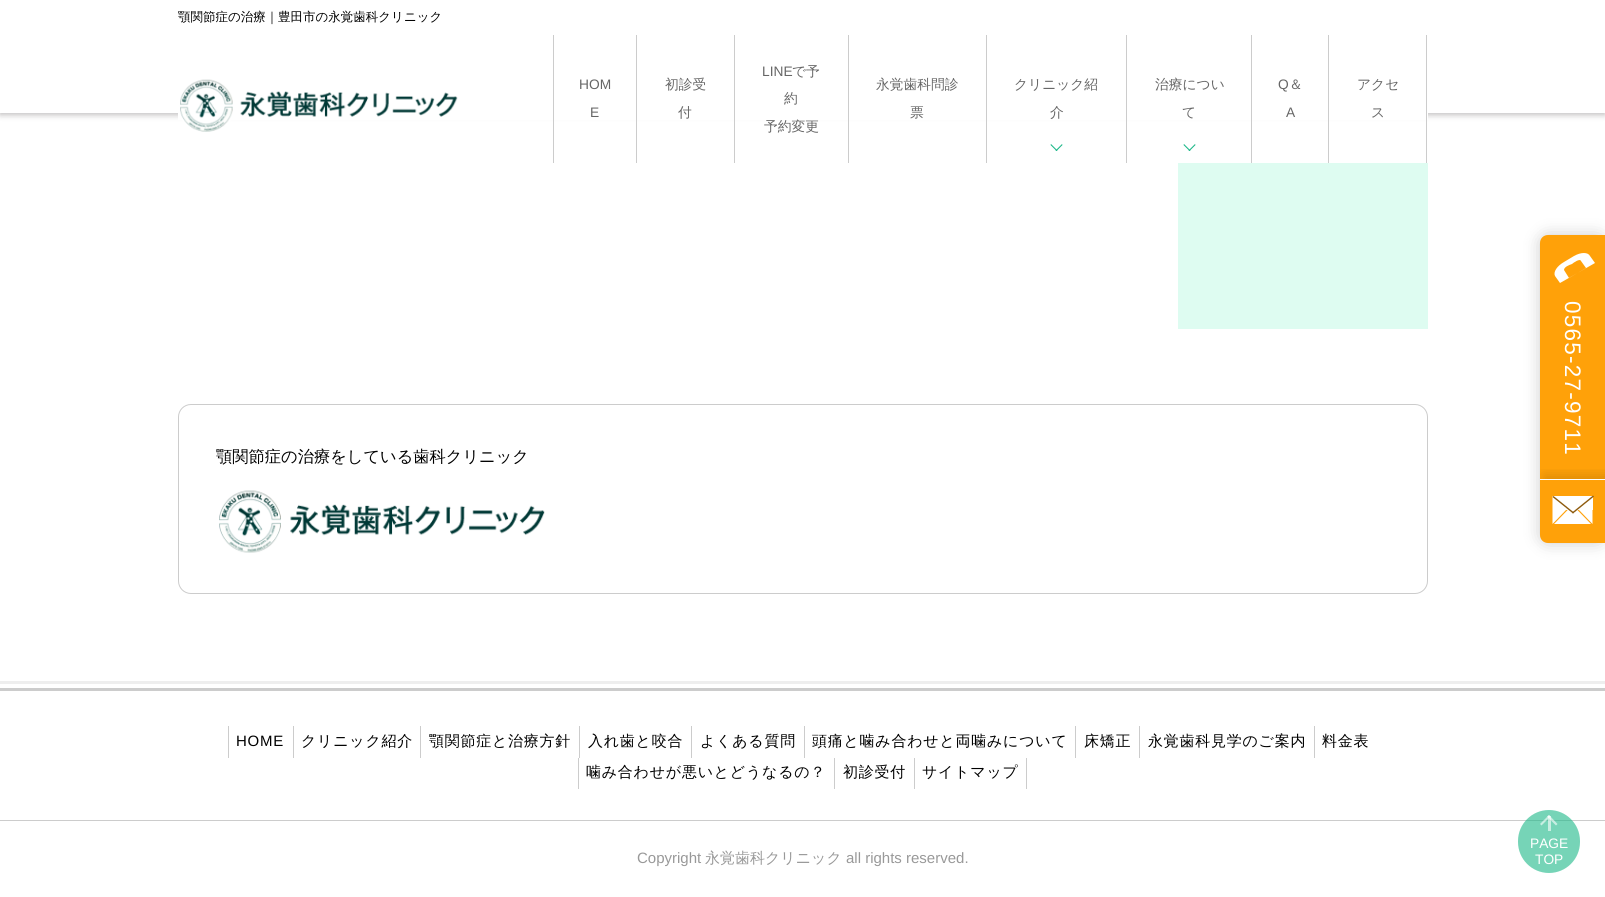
import math
import cairo


def write_spaced(ctx, x, y, s, letter, word):
	ctx.move_to(x, y)
	for ch in s:
		ctx.show_text(ch)
		ctx.rel_move_to(letter + word * (ch == ' '), 0)

def round_path(ctx, x, y, w, h, r):
	ctx.new_sub_path()
	for i, (u, v) in enumerate([(x + w - r, y + h - r), (x + r, y + h - r), (x + r, y + r), (x + w - r, y + r)]):
		ctx.arc(u, v, r, i * math.pi / 2, (i + 1) * math.pi / 2)
	ctx.close_path()

def blur_box(ctx, x, y, w, h, r, blur, alpha):
	ctx.push_group_with_content(cairo.CONTENT_ALPHA)
	ctx.set_operator(cairo.OPERATOR_SOURCE)
	for i in range(15, -16, -2):
		e = blur * i / 6
		if min(w, h) + 2 * e > 0:
			ctx.set_source_rgba(0, 0, 0, alpha * math.erfc((i - 1) / 8.5) / 2)
			round_path(ctx, x - e, y - e, w + 2 * e, h + 2 * e, max(0, min(r + e + blur * .6, min(w, h) / 2 + e)))
			ctx.fill()
	ctx.mask(ctx.pop_group())

def paste(ctx, path, x, y, w, h):
	ctx.save()
	ctx.set_source_surface(cairo.ImageSurface.create_from_png(path), x, y)
	ctx.rectangle(x, y, w, h)
	ctx.fill()
	ctx.restore()

def draw(ctx):
	ctx.set_source_rgb(1, 1, 1)
	ctx.paint()
	ctx.set_source_rgb(0.031, 0.004, 0.012)
	blur_box(ctx, 0, 3, 1605, 112, 0, 3, 0.25)
	ctx.set_source_rgb(1, 1, 1)
	ctx.rectangle(0, 0, 1605, 113)
	ctx.fill()
	ctx.rectangle(178, 113, 1250, 7)
	ctx.fill()
	ctx.select_font_face('WenQuanYi Zen Hei Medium')
	ctx.set_font_size(12.5)
	ctx.set_source_rgb(0, 0, 0)
	ctx.move_to(178, 21)
	ctx.show_text('顎関節症の治療｜豊田市の永覚歯科クリニック')
	paste(ctx, 'media/1.png', 180, 79, 278, 53)
	ctx.set_source_rgb(0.8, 0.8, 0.8)
	ctx.rectangle(1426, 35, 1, 128)
	ctx.fill()
	ctx.rectangle(553, 35, 1, 128)
	ctx.fill()
	ctx.select_font_face('Liberation Sans')
	ctx.set_font_size(13.75)
	ctx.set_source_rgb(0.4, 0.4, 0.4)
	ctx.move_to(579, 89)
	ctx.show_text('HOM')
	ctx.move_to(590, 117)
	ctx.show_text('E')
	ctx.set_source_rgb(0.8, 0.8, 0.8)
	ctx.rectangle(636, 35, 1, 128)
	ctx.fill()
	ctx.select_font_face('WenQuanYi Zen Hei Medium')
	ctx.set_source_rgb(0.4, 0.4, 0.4)
	ctx.move_to(665, 89)
	ctx.show_text('初診受')
	ctx.move_to(678, 117)
	ctx.show_text('付')
	ctx.set_source_rgb(0.8, 0.8, 0.8)
	ctx.rectangle(734, 35, 1, 128)
	ctx.fill()
	ctx.select_font_face('Liberation Sans')
	ctx.set_source_rgb(0.4, 0.4, 0.4)
	ctx.move_to(762, 76)
	ctx.show_text('LINE')
	ctx.select_font_face('WenQuanYi Zen Hei Medium')
	for x, y, s in [
		(792, 76, 'で予'),
		(784, 103, '約'),
		(764, 131, '予約変更'),
	]:
		ctx.move_to(x, y)
		ctx.show_text(s)
	ctx.set_source_rgb(0.8, 0.8, 0.8)
	ctx.rectangle(848, 35, 1, 128)
	ctx.fill()
	ctx.set_source_rgb(0.4, 0.4, 0.4)
	ctx.move_to(876, 89)
	ctx.show_text('永覚歯科問診')
	ctx.move_to(910, 117)
	ctx.show_text('票')
	ctx.set_source_rgb(0.8, 0.8, 0.8)
	ctx.rectangle(986, 35, 1, 128)
	ctx.fill()
	ctx.set_source_rgb(0.4, 0.4, 0.4)
	ctx.move_to(1014, 89)
	ctx.show_text('クリニック紹')
	ctx.move_to(1050, 117)
	ctx.show_text('介')
	ctx.set_source_rgb(0.106, 0.718, 0.533)
	ctx.new_path()
	ctx.move_to(1062, 144)
	ctx.line_to(1062.5, 145)
	ctx.line_to(1056.5, 151)
	ctx.line_to(1055.5, 150.5)
	ctx.close_path()
	ctx.fill()
	ctx.new_path()
	ctx.move_to(1051, 144)
	ctx.line_to(1057.5, 150.5)
	ctx.line_to(1056.5, 151)
	ctx.line_to(1050.5, 145)
	ctx.close_path()
	ctx.fill()
	ctx.set_source_rgb(0.8, 0.8, 0.8)
	ctx.rectangle(1126, 35, 1, 128)
	ctx.fill()
	ctx.set_source_rgb(0.4, 0.4, 0.4)
	ctx.move_to(1155, 89)
	ctx.show_text('治療につい')
	ctx.move_to(1182, 117)
	ctx.show_text('て')
	ctx.set_source_rgb(0.106, 0.718, 0.533)
	ctx.new_path()
	ctx.move_to(1195, 144)
	ctx.line_to(1195.5, 145)
	ctx.line_to(1189.5, 151)
	ctx.line_to(1188.5, 150.5)
	ctx.close_path()
	ctx.fill()
	ctx.new_path()
	ctx.move_to(1184, 144)
	ctx.line_to(1190.5, 150.5)
	ctx.line_to(1189.5, 151)
	ctx.line_to(1183.5, 145)
	ctx.close_path()
	ctx.fill()
	ctx.set_source_rgb(0.8, 0.8, 0.8)
	ctx.rectangle(1251, 35, 1, 128)
	ctx.fill()
	ctx.select_font_face('Liberation Sans')
	ctx.set_source_rgb(0.4, 0.4, 0.4)
	ctx.move_to(1278, 89)
	ctx.show_text('Q')
	ctx.select_font_face('WenQuanYi Zen Hei Medium')
	ctx.move_to(1289, 89)
	ctx.show_text('＆')
	ctx.select_font_face('Liberation Sans')
	ctx.move_to(1286, 117)
	ctx.show_text('A')
	ctx.set_source_rgb(0.8, 0.8, 0.8)
	ctx.rectangle(1328, 35, 1, 128)
	ctx.fill()
	ctx.select_font_face('WenQuanYi Zen Hei Medium')
	ctx.set_source_rgb(0.4, 0.4, 0.4)
	ctx.move_to(1357, 89)
	ctx.show_text('アクセ')
	ctx.move_to(1371, 117)
	ctx.show_text('ス')
	ctx.set_source_rgb(0.871, 0.988, 0.945)
	ctx.rectangle(1178, 163, 250, 166)
	ctx.fill()
	ctx.set_source_rgb(0, 0, 0)
	blur_box(ctx, 1540, 235, 65, 308, 8, 8, 0.2)
	ctx.set_source_rgb(1, 0.631, 0.039)
	ctx.new_path()
	ctx.move_to(1548, 235)
	ctx.line_to(1605, 235)
	ctx.line_to(1605, 543)
	ctx.line_to(1548, 543)
	ctx.curve_to(1543.5, 543, 1540, 539.5, 1540, 535)
	ctx.line_to(1540, 243)
	ctx.curve_to(1540, 238.5, 1543.5, 235, 1548, 235)
	ctx.close_path()
	ctx.fill()
	ctx.set_source_rgb(1, 1, 1)
	ctx.set_fill_rule(cairo.FILL_RULE_EVEN_ODD)
	ctx.new_path()
	ctx.move_to(1590, 256)
	ctx.line_to(1595, 263)
	ctx.line_to(1560, 283)
	ctx.line_to(1555, 276)
	ctx.curve_to(1553, 272, 1557, 266, 1564, 262)
	ctx.line_to(1574, 256)
	ctx.curve_to(1581, 252, 1588, 252, 1590, 256)
	ctx.close_path()
	ctx.move_to(1581, 261)
	ctx.line_to(1586, 268)
	ctx.line_to(1569, 278)
	ctx.line_to(1564, 270)
	ctx.curve_to(1564, 267, 1569, 265, 1572, 264)
	ctx.curve_to(1573, 263, 1580, 258, 1581, 261)
	ctx.close_path()
	ctx.fill()
	ctx.select_font_face('Liberation Sans')
	ctx.set_font_size(22.5)
	ctx.save()
	ctx.translate(1565, 301)
	ctx.rotate(90 * math.pi / 180)
	write_spaced(ctx, 0, 0, '0565-27-9711', 1.25, 0)
	ctx.restore()
	ctx.save()
	ctx.set_fill_rule(cairo.FILL_RULE_WINDING)
	ctx.new_path()
	ctx.move_to(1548, 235)
	ctx.line_to(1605, 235)
	ctx.line_to(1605, 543)
	ctx.line_to(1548, 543)
	ctx.curve_to(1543.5, 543, 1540, 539.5, 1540, 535)
	ctx.line_to(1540, 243)
	ctx.curve_to(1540, 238.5, 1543.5, 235, 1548, 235)
	ctx.close_path()
	ctx.clip()
	ctx.rectangle(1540, 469, 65, 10)
	ctx.clip()
	ctx.set_source_rgb(0, 0, 0)
	blur_box(ctx, 1544, 475, 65, 64, 0, 6, 0.14)
	ctx.restore()
	ctx.rectangle(1540, 479, 65, 1)
	ctx.fill()
	ctx.rectangle(1553, 496, 40, 14)
	ctx.fill()
	ctx.set_fill_rule(cairo.FILL_RULE_WINDING)
	ctx.new_path()
	ctx.move_to(1592.5, 496)
	ctx.line_to(1592.5, 524)
	ctx.line_to(1579, 510)
	ctx.close_path()
	ctx.move_to(1552.5, 524)
	ctx.line_to(1552.5, 496)
	ctx.line_to(1566, 510)
	ctx.close_path()
	ctx.fill()
	ctx.new_path()
	ctx.move_to(1591, 524)
	ctx.line_to(1554, 524)
	ctx.line_to(1572.5, 505)
	ctx.close_path()
	ctx.fill()
	ctx.set_source_rgb(0.557, 0.357, 0.055)
	ctx.new_path()
	ctx.move_to(1593, 495.5)
	ctx.line_to(1594, 496.5)
	ctx.line_to(1573, 513.5)
	ctx.line_to(1572, 512.5)
	ctx.close_path()
	ctx.fill()
	ctx.new_path()
	ctx.move_to(1553.5, 496)
	ctx.line_to(1574, 512.5)
	ctx.line_to(1573, 513.5)
	ctx.line_to(1552.5, 497)
	ctx.close_path()
	ctx.fill()
	ctx.set_source_rgb(0.933, 0.933, 0.933)
	ctx.rectangle(0, 681, 1605, 3)
	ctx.fill()
	ctx.set_source_rgb(0.8, 0.8, 0.8)
	ctx.rectangle(0, 688, 1605, 3)
	ctx.rectangle(228, 726, 1, 32)
	ctx.fill()
	ctx.set_font_size(15)
	ctx.set_source_rgb(0, 0, 0)
	write_spaced(ctx, 236, 746, 'HOME', 0.75, 0)
	ctx.set_source_rgb(0.8, 0.8, 0.8)
	ctx.rectangle(293, 726, 1, 32)
	ctx.fill()
	ctx.select_font_face('WenQuanYi Zen Hei Medium')
	ctx.set_source_rgb(0, 0, 0)
	write_spaced(ctx, 301, 746, 'クリニック紹介', 0.75, 0)
	ctx.set_source_rgb(0.8, 0.8, 0.8)
	ctx.rectangle(420, 726, 1, 32)
	ctx.fill()
	ctx.set_source_rgb(0, 0, 0)
	write_spaced(ctx, 429, 746, '顎関節症と治療方針', 0.75, 0)
	ctx.set_source_rgb(0.8, 0.8, 0.8)
	ctx.rectangle(579, 726, 1, 32)
	ctx.fill()
	ctx.set_source_rgb(0, 0, 0)
	write_spaced(ctx, 588, 746, '入れ歯と咬合', 0.75, 0)
	ctx.set_source_rgb(0.8, 0.8, 0.8)
	ctx.rectangle(691, 726, 1, 32)
	ctx.fill()
	ctx.set_source_rgb(0, 0, 0)
	write_spaced(ctx, 700, 746, 'よくある質問', 0.75, 0)
	ctx.set_source_rgb(0.8, 0.8, 0.8)
	ctx.rectangle(804, 726, 1, 32)
	ctx.fill()
	ctx.set_source_rgb(0, 0, 0)
	write_spaced(ctx, 812, 746, '頭痛と噛み合わせと両噛みについて', 0.75, 0)
	ctx.set_source_rgb(0.8, 0.8, 0.8)
	ctx.rectangle(1075, 726, 1, 32)
	ctx.fill()
	ctx.set_source_rgb(0, 0, 0)
	write_spaced(ctx, 1084, 746, '床矯正', 0.75, 0)
	ctx.set_source_rgb(0.8, 0.8, 0.8)
	ctx.rectangle(1139, 726, 1, 32)
	ctx.fill()
	ctx.set_source_rgb(0, 0, 0)
	write_spaced(ctx, 1148, 746, '永覚歯科見学のご案内', 0.75, 0)
	ctx.set_source_rgb(0.8, 0.8, 0.8)
	ctx.rectangle(1314, 726, 1, 32)
	ctx.fill()
	ctx.set_source_rgb(0, 0, 0)
	write_spaced(ctx, 1322, 746, '料金表', 0.75, 0)
	ctx.set_source_rgb(0.8, 0.8, 0.8)
	ctx.rectangle(578, 758, 1, 31)
	ctx.fill()
	ctx.set_source_rgb(0, 0, 0)
	write_spaced(ctx, 586, 777, '噛み合わせが悪いとどうなるの？', 0.75, 0)
	ctx.set_source_rgb(0.8, 0.8, 0.8)
	ctx.rectangle(834, 758, 1, 31)
	ctx.fill()
	ctx.set_source_rgb(0, 0, 0)
	write_spaced(ctx, 843, 777, '初診受付', 0.75, 0)
	ctx.set_source_rgb(0.8, 0.8, 0.8)
	ctx.rectangle(914, 758, 1, 31)
	ctx.fill()
	ctx.rectangle(1026, 758, 1, 31)
	ctx.fill()
	ctx.set_source_rgb(0, 0, 0)
	write_spaced(ctx, 922, 777, 'サイトマップ', 0.75, 0)
	ctx.set_source_rgb(0.8, 0.8, 0.8)
	ctx.rectangle(0, 820, 1605, 1)
	ctx.fill()
	ctx.select_font_face('Liberation Sans')
	ctx.set_source_rgb(0.6, 0.6, 0.6)
	ctx.move_to(637, 863)
	ctx.show_text('Copyright')
	ctx.select_font_face('WenQuanYi Zen Hei Medium')
	ctx.move_to(705, 863)
	ctx.show_text('永覚歯科クリニック')
	ctx.select_font_face('Liberation Sans')
	ctx.move_to(846, 863)
	ctx.show_text('all rights reserved.')
	ctx.set_source_rgba(0.106, 0.718, 0.533, 0.6)
	round_path(ctx, 1518, 810, 62, 63, 31)
	ctx.fill()
	ctx.set_source_rgba(1, 1, 1, 0.6)
	ctx.new_path()
	ctx.move_to(1540, 824)
	ctx.line_to(1549, 815)
	ctx.line_to(1550.5, 816.5)
	ctx.line_to(1541.5, 825.5)
	ctx.close_path()
	ctx.fill()
	ctx.new_path()
	ctx.move_to(1547, 816.5)
	ctx.line_to(1549, 815)
	ctx.line_to(1557.5, 824)
	ctx.line_to(1556, 825.5)
	ctx.close_path()
	ctx.fill()
	ctx.rectangle(1548, 816, 3, 15)
	ctx.fill()
	ctx.set_font_size(13.75)
	ctx.set_source_rgb(1, 1, 1)
	ctx.move_to(1530, 848)
	ctx.show_text('PAGE')
	ctx.move_to(1535, 864)
	ctx.show_text('TOP')
	round_path(ctx, 178.5, 404.5, 1249, 189, 12.5)
	ctx.set_source_rgb(0.8, 0.8, 0.8)
	ctx.set_line_width(1)
	ctx.stroke()
	ctx.select_font_face('WenQuanYi Zen Hei Medium')
	ctx.set_font_size(16.25)
	ctx.set_source_rgb(0, 0, 0)
	ctx.move_to(216, 462)
	ctx.show_text('顎関節症の治療をしている歯科クリニック')
	paste(ctx, 'media/2.png', 219, 490, 326, 63)


surface = cairo.ImageSurface(cairo.FORMAT_RGB24, 1605, 897)
ctx = cairo.Context(surface)
options = cairo.FontOptions()
options.set_hint_metrics(cairo.HINT_METRICS_OFF)
options.set_hint_style(cairo.HINT_STYLE_NONE)
ctx.set_font_options(options)
ctx.set_miter_limit(4)
draw(ctx)
surface.write_to_png('image.png')
